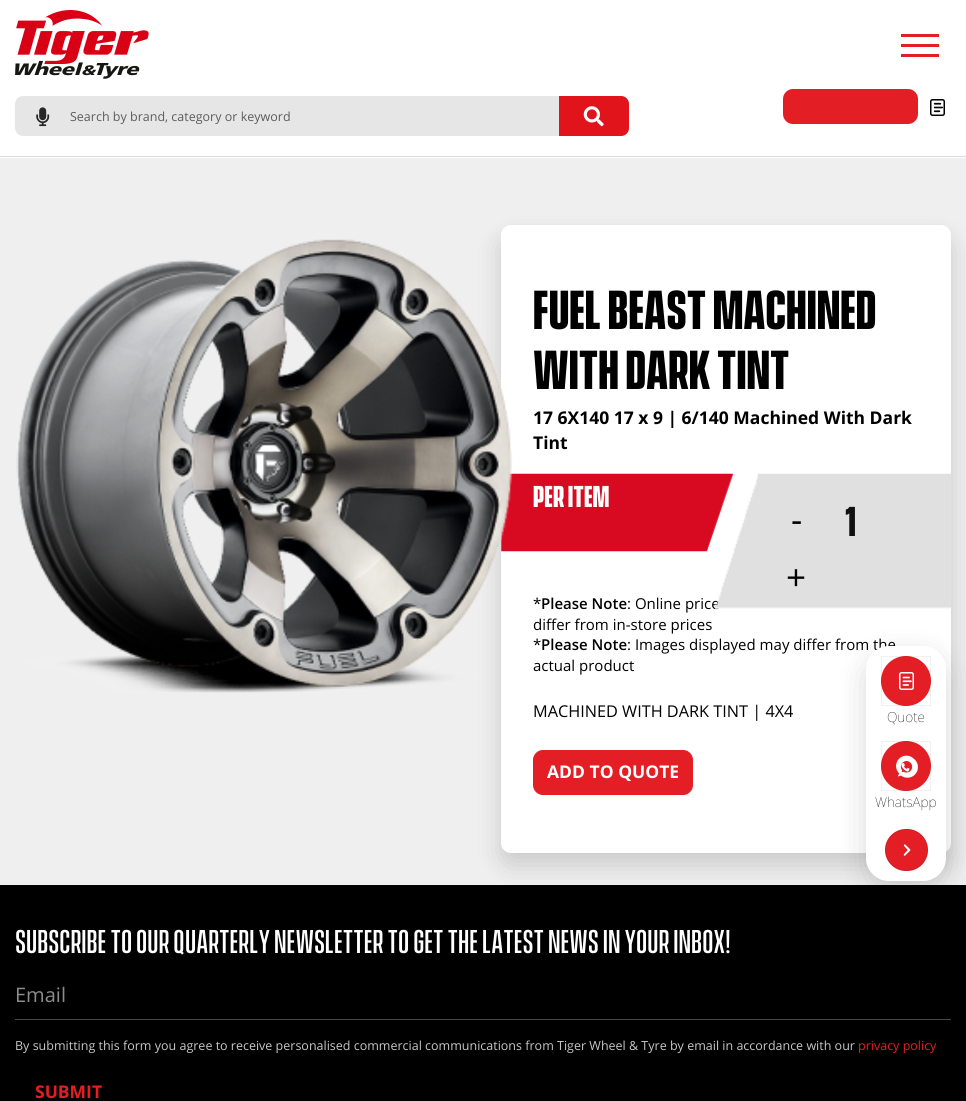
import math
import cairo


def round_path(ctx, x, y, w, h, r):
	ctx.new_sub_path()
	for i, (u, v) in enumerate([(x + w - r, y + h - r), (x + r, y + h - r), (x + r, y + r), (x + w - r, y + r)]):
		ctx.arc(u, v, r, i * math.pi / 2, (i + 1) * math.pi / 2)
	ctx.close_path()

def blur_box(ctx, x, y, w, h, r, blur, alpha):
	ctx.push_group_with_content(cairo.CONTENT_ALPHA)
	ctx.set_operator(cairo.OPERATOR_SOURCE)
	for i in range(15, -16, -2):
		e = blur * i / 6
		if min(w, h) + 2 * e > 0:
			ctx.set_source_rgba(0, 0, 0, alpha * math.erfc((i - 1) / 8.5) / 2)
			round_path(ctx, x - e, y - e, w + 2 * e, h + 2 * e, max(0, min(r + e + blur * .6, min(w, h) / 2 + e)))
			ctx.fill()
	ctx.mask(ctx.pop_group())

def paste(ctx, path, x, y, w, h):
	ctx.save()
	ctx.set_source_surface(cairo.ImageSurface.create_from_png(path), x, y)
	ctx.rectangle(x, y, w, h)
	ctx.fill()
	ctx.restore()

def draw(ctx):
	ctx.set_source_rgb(0.937, 0.937, 0.937)
	ctx.paint()
	ctx.set_source_rgb(1, 1, 1)
	ctx.rectangle(0, 0, 966, 158)
	ctx.fill()
	ctx.set_source_rgb(0.859, 0.859, 0.859)
	ctx.rectangle(0, 156, 966, 1)
	ctx.fill()
	paste(ctx, 'media/1.png', 15, 10, 134, 69)
	ctx.set_source_rgb(0.89, 0.118, 0.141)
	ctx.rectangle(901, 54, 38, 3)
	ctx.rectangle(901, 44, 38, 3)
	ctx.rectangle(901, 34, 38, 3)
	ctx.fill()
	ctx.set_source_rgb(0.902, 0.902, 0.902)
	round_path(ctx, 15, 96, 614, 40, 8)
	ctx.fill()
	paste(ctx, 'media/2.png', 36, 107, 14, 20)
	ctx.select_font_face('Open Sans')
	ctx.set_font_size(12.5)
	ctx.set_source_rgb(0.357, 0.357, 0.357)
	ctx.move_to(70, 121)
	ctx.show_text('Search by brand, category or keyword')
	ctx.set_source_rgb(0.882, 0.075, 0.106)
	ctx.new_path()
	ctx.move_to(559, 96)
	ctx.line_to(621, 96)
	ctx.curve_to(625.5, 96, 629, 99.5, 629, 104)
	ctx.line_to(629, 128)
	ctx.curve_to(629, 132.5, 625.5, 136, 621, 136)
	ctx.line_to(559, 136)
	ctx.close_path()
	ctx.fill()
	paste(ctx, 'media/3.png', 583, 106, 21, 21)
	ctx.set_source_rgb(0.89, 0.118, 0.141)
	round_path(ctx, 783, 89, 135, 35, 10)
	ctx.fill()
	paste(ctx, 'media/4.png', 930, 99, 15, 17)
	ctx.set_source_rgb(0, 0, 0)
	blur_box(ctx, 501, 238, 450, 627, 10, 12.5, 0.16)
	ctx.set_source_rgb(1, 1, 1)
	round_path(ctx, 501, 225, 450, 628, 10)
	ctx.fill()
	paste(ctx, 'media/6.png', 501, 473, 233, 79)
	paste(ctx, 'media/5.png', 16, 239, 497, 454)
	ctx.select_font_face('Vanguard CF', cairo.FONT_SLANT_NORMAL, cairo.FONT_WEIGHT_BOLD)
	ctx.set_font_size(50)
	ctx.set_source_rgb(0, 0, 0)
	ctx.move_to(533, 329)
	ctx.show_text('Fuel Beast Machined')
	ctx.move_to(533, 389)
	ctx.show_text('With Dark Tint')
	ctx.select_font_face('Open Sans', cairo.FONT_SLANT_NORMAL, cairo.FONT_WEIGHT_BOLD)
	ctx.set_font_size(17.5)
	ctx.move_to(533, 424)
	ctx.show_text('17 6X140 17 x 9 | 6/140 Machined With Dark')
	ctx.move_to(533, 449)
	ctx.show_text('Tint')
	ctx.select_font_face('Vanguard CF', cairo.FONT_SLANT_NORMAL, cairo.FONT_WEIGHT_BOLD)
	ctx.set_font_size(27.5)
	ctx.set_source_rgb(1, 1, 1)
	ctx.move_to(533, 507)
	ctx.show_text('Per Item')
	ctx.select_font_face('Open Sans')
	ctx.set_font_size(15)
	ctx.set_source_rgb(0, 0, 0)
	ctx.move_to(627, 609)
	ctx.show_text(': Online price')
	paste(ctx, 'media/7.png', 715, 473, 237, 136)
	ctx.set_font_size(35)
	ctx.move_to(791, 532)
	ctx.show_text('-')
	ctx.select_font_face('Vanguard CF', cairo.FONT_SLANT_NORMAL, cairo.FONT_WEIGHT_BOLD)
	ctx.set_font_size(38)
	ctx.set_source_rgb(0.067, 0.067, 0.067)
	ctx.move_to(845, 536)
	ctx.show_text('1')
	ctx.select_font_face('Open Sans')
	ctx.set_font_size(35)
	ctx.set_source_rgb(0, 0, 0)
	ctx.move_to(786, 590)
	ctx.show_text('+')
	ctx.set_font_size(15)
	ctx.move_to(533, 609)
	ctx.show_text('*')
	ctx.select_font_face('Open Sans SemiBold')
	ctx.move_to(541, 609)
	ctx.show_text('Please Note')
	ctx.select_font_face('Open Sans')
	ctx.move_to(533, 630)
	ctx.show_text('differ from in-store prices')
	ctx.move_to(533, 650)
	ctx.show_text('*')
	ctx.select_font_face('Open Sans SemiBold')
	ctx.move_to(541, 650)
	ctx.show_text('Please Note')
	ctx.select_font_face('Open Sans')
	ctx.move_to(627, 650)
	ctx.show_text(': Images displayed may differ from the')
	ctx.move_to(533, 671)
	ctx.show_text('actual product')
	ctx.set_font_size(16.25)
	ctx.move_to(533, 717)
	ctx.show_text('MACHINED WITH DARK TINT | 4X4')
	ctx.set_source_rgb(0.89, 0.118, 0.141)
	round_path(ctx, 533.5, 750.5, 159, 44, 9.5)
	ctx.fill_preserve()
	ctx.set_line_width(1)
	ctx.stroke()
	ctx.select_font_face('Open Sans', cairo.FONT_SLANT_NORMAL, cairo.FONT_WEIGHT_BOLD)
	ctx.set_font_size(17.5)
	ctx.set_source_rgb(1, 1, 1)
	ctx.move_to(547, 778)
	ctx.show_text('ADD TO QUOTE')
	ctx.set_source_rgb(0, 0, 0)
	ctx.rectangle(0, 885, 966, 216)
	ctx.fill()
	ctx.set_source_rgb(0, 0, 0)
	blur_box(ctx, 866, 656, 80, 235, 23, 15, 0.15)
	ctx.set_source_rgb(1, 1, 1)
	round_path(ctx, 866, 646, 80, 235, 23)
	ctx.fill()
	ctx.set_source_rgb(0.89, 0.118, 0.141)
	ctx.arc(906, 681, 25, 0, 2 * math.pi)
	ctx.fill()
	ctx.rectangle(881.5, 656.5, 49, 49)
	ctx.set_source_rgba(0, 0, 0, 0.06)
	ctx.stroke()
	paste(ctx, 'media/8.png', 899, 672, 15, 18)
	ctx.select_font_face('Noto Sans Thin')
	ctx.set_font_size(13.75)
	ctx.set_source_rgb(0, 0, 0)
	ctx.move_to(887, 722)
	ctx.show_text('Quote')
	ctx.set_source_rgb(0.89, 0.118, 0.141)
	ctx.new_path()
	ctx.arc(906, 766, 25, 0, 2 * math.pi)
	ctx.fill()
	ctx.rectangle(881.5, 741.5, 49, 49)
	ctx.set_source_rgba(0, 0, 0, 0.06)
	ctx.stroke()
	paste(ctx, 'media/9.png', 896, 755, 22, 23)
	ctx.set_source_rgb(0, 0, 0)
	ctx.move_to(875, 807)
	ctx.show_text('WhatsApp')
	ctx.set_source_rgb(0.89, 0.118, 0.141)
	round_path(ctx, 885, 829, 43, 42, 21)
	ctx.fill()
	round_path(ctx, 885.5, 829.5, 42, 41, 20.5)
	ctx.set_source_rgba(0, 0, 0, 0.08)
	ctx.stroke()
	paste(ctx, 'media/10.png', 903, 844, 8, 12)
	ctx.select_font_face('Vanguard CF Medium')
	ctx.set_font_size(30)
	ctx.set_source_rgb(1, 1, 1)
	ctx.move_to(15, 953)
	ctx.show_text('Subscribe to our quarterly Newsletter to get the latest news in your Inbox!')
	ctx.set_source_rgb(0.278, 0.278, 0.278)
	ctx.rectangle(15, 1019, 936, 1)
	ctx.fill()
	ctx.select_font_face('Open Sans')
	ctx.set_font_size(20)
	ctx.set_source_rgb(0.549, 0.549, 0.549)
	ctx.move_to(15, 1002)
	ctx.show_text('Email')
	ctx.set_font_size(12.5)
	ctx.set_source_rgb(0.784, 0.784, 0.784)
	ctx.move_to(15, 1050)
	ctx.show_text('By submitting this form you agree to receive personalised commercial communications from Tiger Wheel & Tyre by email in accordance with our')
	ctx.set_source_rgb(0.89, 0.118, 0.141)
	ctx.move_to(858, 1050)
	ctx.show_text('privacy policy')
	ctx.select_font_face('Open Sans', cairo.FONT_SLANT_NORMAL, cairo.FONT_WEIGHT_BOLD)
	ctx.set_font_size(17.5)
	ctx.move_to(35, 1098)
	ctx.show_text('SUBMIT')


surface = cairo.ImageSurface(cairo.FORMAT_RGB24, 966, 1101)
ctx = cairo.Context(surface)
options = cairo.FontOptions()
options.set_hint_metrics(cairo.HINT_METRICS_OFF)
options.set_hint_style(cairo.HINT_STYLE_NONE)
ctx.set_font_options(options)
ctx.set_miter_limit(4)
draw(ctx)
surface.write_to_png('image.png')
